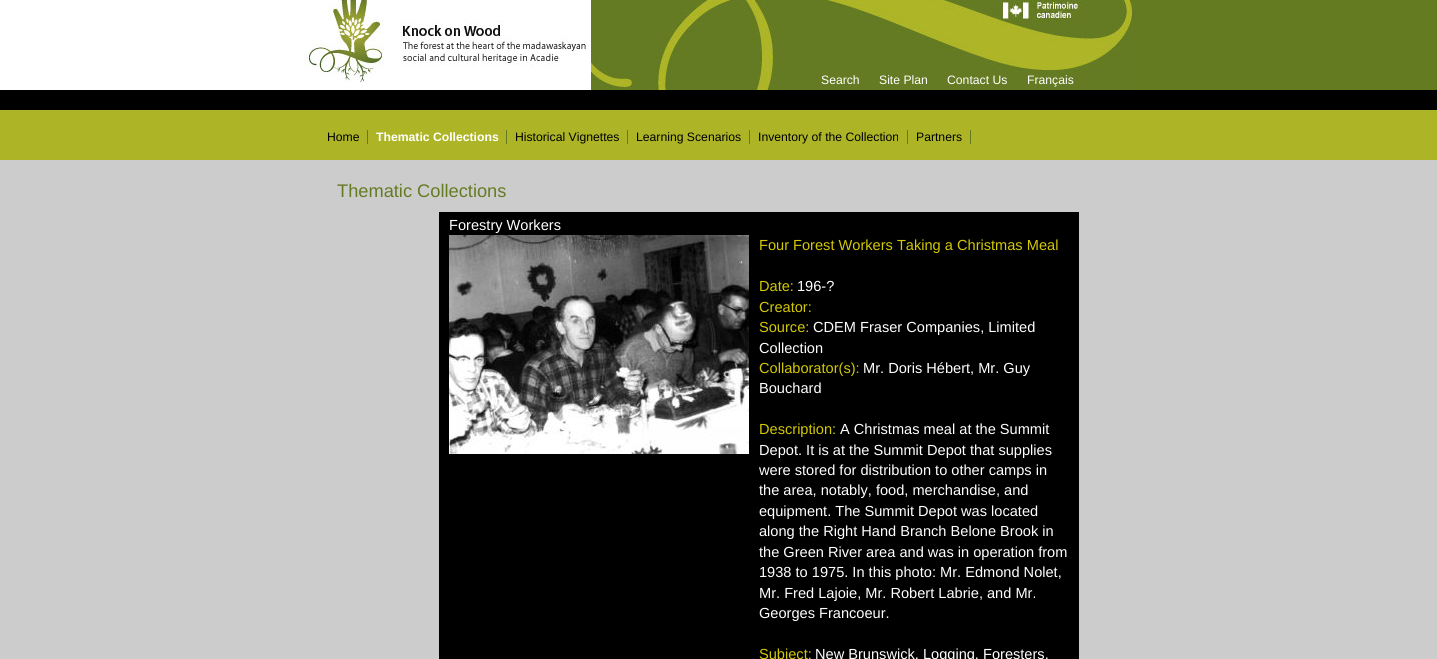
import math
import cairo


def paste(ctx, path, x, y, w, h):
	ctx.save()
	ctx.set_source_surface(cairo.ImageSurface.create_from_png(path), x, y)
	ctx.rectangle(x, y, w, h)
	ctx.fill()
	ctx.restore()

def draw(ctx):
	ctx.set_source_rgb(0.8, 0.8, 0.8)
	ctx.paint()
	ctx.set_source_rgb(1, 1, 1)
	ctx.rectangle(0, 0, 591, 90)
	ctx.fill()
	ctx.set_source_rgb(0.392, 0.482, 0.133)
	ctx.rectangle(1134, 0, 303, 90)
	ctx.fill()
	paste(ctx, 'media/1.png', 591, 0, 543, 90)
	paste(ctx, 'media/2.png', 304, 0, 286, 83)
	paste(ctx, 'media/3.png', 1002, 0, 80, 21)
	ctx.select_font_face('Liberation Sans')
	ctx.set_font_size(12.2)
	ctx.set_source_rgb(1, 1, 1)
	for x, y, s in [
		(821, 84, 'Search'),
		(879, 84, 'Site Plan'),
		(947, 84, 'Contact Us'),
		(1027, 84, 'Français'),
	]:
		ctx.move_to(x, y)
		ctx.show_text(s)
	ctx.set_source_rgb(0, 0, 0)
	ctx.rectangle(0, 90, 1437, 20)
	ctx.fill()
	ctx.set_source_rgb(0.678, 0.71, 0.153)
	ctx.rectangle(0, 110, 1437, 50)
	ctx.fill()
	ctx.set_source_rgb(0.392, 0.482, 0.133)
	ctx.rectangle(367, 130, 1, 14)
	ctx.fill()
	ctx.set_source_rgb(0, 0, 0)
	ctx.move_to(327, 141)
	ctx.show_text('Home')
	ctx.set_source_rgb(0.392, 0.482, 0.133)
	ctx.rectangle(506, 130, 1, 14)
	ctx.fill()
	ctx.select_font_face('Liberation Sans', cairo.FONT_SLANT_NORMAL, cairo.FONT_WEIGHT_BOLD)
	ctx.set_source_rgb(1, 1, 1)
	ctx.move_to(376, 141)
	ctx.show_text('Thematic Collections')
	ctx.set_source_rgb(0.392, 0.482, 0.133)
	ctx.rectangle(627, 130, 1, 14)
	ctx.fill()
	ctx.select_font_face('Liberation Sans')
	ctx.set_source_rgb(0, 0, 0)
	ctx.move_to(515, 141)
	ctx.show_text('Historical Vignettes')
	ctx.set_source_rgb(0.392, 0.482, 0.133)
	ctx.rectangle(749, 130, 1, 14)
	ctx.fill()
	ctx.set_source_rgb(0, 0, 0)
	ctx.move_to(636, 141)
	ctx.show_text('Learning Scenarios')
	ctx.set_source_rgb(0.392, 0.482, 0.133)
	ctx.rectangle(907, 130, 1, 14)
	ctx.fill()
	ctx.set_source_rgb(0, 0, 0)
	ctx.move_to(758, 141)
	ctx.show_text('Inventory of the Collection')
	ctx.set_source_rgb(0.392, 0.482, 0.133)
	ctx.rectangle(970, 130, 1, 14)
	ctx.fill()
	ctx.set_source_rgb(0, 0, 0)
	ctx.move_to(916, 141)
	ctx.show_text('Partners')
	ctx.set_font_size(18.25)
	ctx.set_source_rgb(0.392, 0.482, 0.133)
	ctx.move_to(337, 197)
	ctx.show_text('Thematic Collections')
	ctx.set_source_rgb(0, 0, 0)
	ctx.rectangle(439, 212, 640, 447)
	ctx.fill()
	ctx.set_font_size(14.6)
	ctx.set_source_rgb(1, 1, 1)
	ctx.move_to(449, 230)
	ctx.show_text('Forestry Workers')
	paste(ctx, 'media/4.png', 449, 235, 300, 219)
	ctx.set_source_rgb(0.827, 0.788, 0.02)
	ctx.move_to(759, 250)
	ctx.show_text('Four Forest Workers Taking a Christmas Meal')
	ctx.move_to(759, 291)
	ctx.show_text('Date:')
	ctx.set_source_rgb(1, 1, 1)
	ctx.move_to(797, 291)
	ctx.show_text('196-?')
	ctx.set_source_rgb(0.827, 0.788, 0.02)
	ctx.move_to(759, 312)
	ctx.show_text('Creator:')
	ctx.move_to(759, 332)
	ctx.show_text('Source:')
	ctx.set_source_rgb(1, 1, 1)
	ctx.move_to(813, 332)
	ctx.show_text('CDEM Fraser Companies, Limited')
	ctx.move_to(759, 353)
	ctx.show_text('Collection')
	ctx.set_source_rgb(0.827, 0.788, 0.02)
	ctx.move_to(759, 373)
	ctx.show_text('Collaborator(s):')
	ctx.set_source_rgb(1, 1, 1)
	ctx.move_to(863, 373)
	ctx.show_text('Mr. Doris Hébert, Mr. Guy')
	ctx.move_to(759, 393)
	ctx.show_text('Bouchard')
	ctx.set_source_rgb(0.827, 0.788, 0.02)
	ctx.move_to(759, 434)
	ctx.show_text('Description:')
	ctx.set_source_rgb(1, 1, 1)
	for x, y, s in [
		(840, 434, 'A Christmas meal at the Summit'),
		(759, 455, 'Depot. It is at the Summit Depot that supplies'),
		(759, 475, 'were stored for distribution to other camps in'),
		(759, 495, 'the area, notably, food, merchandise, and'),
		(759, 516, 'equipment. The Summit Depot was located'),
		(759, 536, 'along the Right Hand Branch Belone Brook in'),
		(759, 557, 'the Green River area and was in operation from'),
		(759, 577, '1938 to 1975. In this photo: Mr. Edmond Nolet,'),
		(759, 598, 'Mr. Fred Lajoie, Mr. Robert Labrie, and Mr.'),
		(759, 618, 'Georges Francoeur.'),
	]:
		ctx.move_to(x, y)
		ctx.show_text(s)
	ctx.set_source_rgb(0.827, 0.788, 0.02)
	ctx.move_to(759, 659)
	ctx.show_text('Subject:')
	ctx.set_source_rgb(1, 1, 1)
	ctx.move_to(815, 659)
	ctx.show_text('New Brunswick, Logging, Foresters,')


surface = cairo.ImageSurface(cairo.FORMAT_RGB24, 1437, 659)
ctx = cairo.Context(surface)
options = cairo.FontOptions()
options.set_hint_metrics(cairo.HINT_METRICS_OFF)
options.set_hint_style(cairo.HINT_STYLE_NONE)
ctx.set_font_options(options)
ctx.set_miter_limit(4)
draw(ctx)
surface.write_to_png('image.png')
